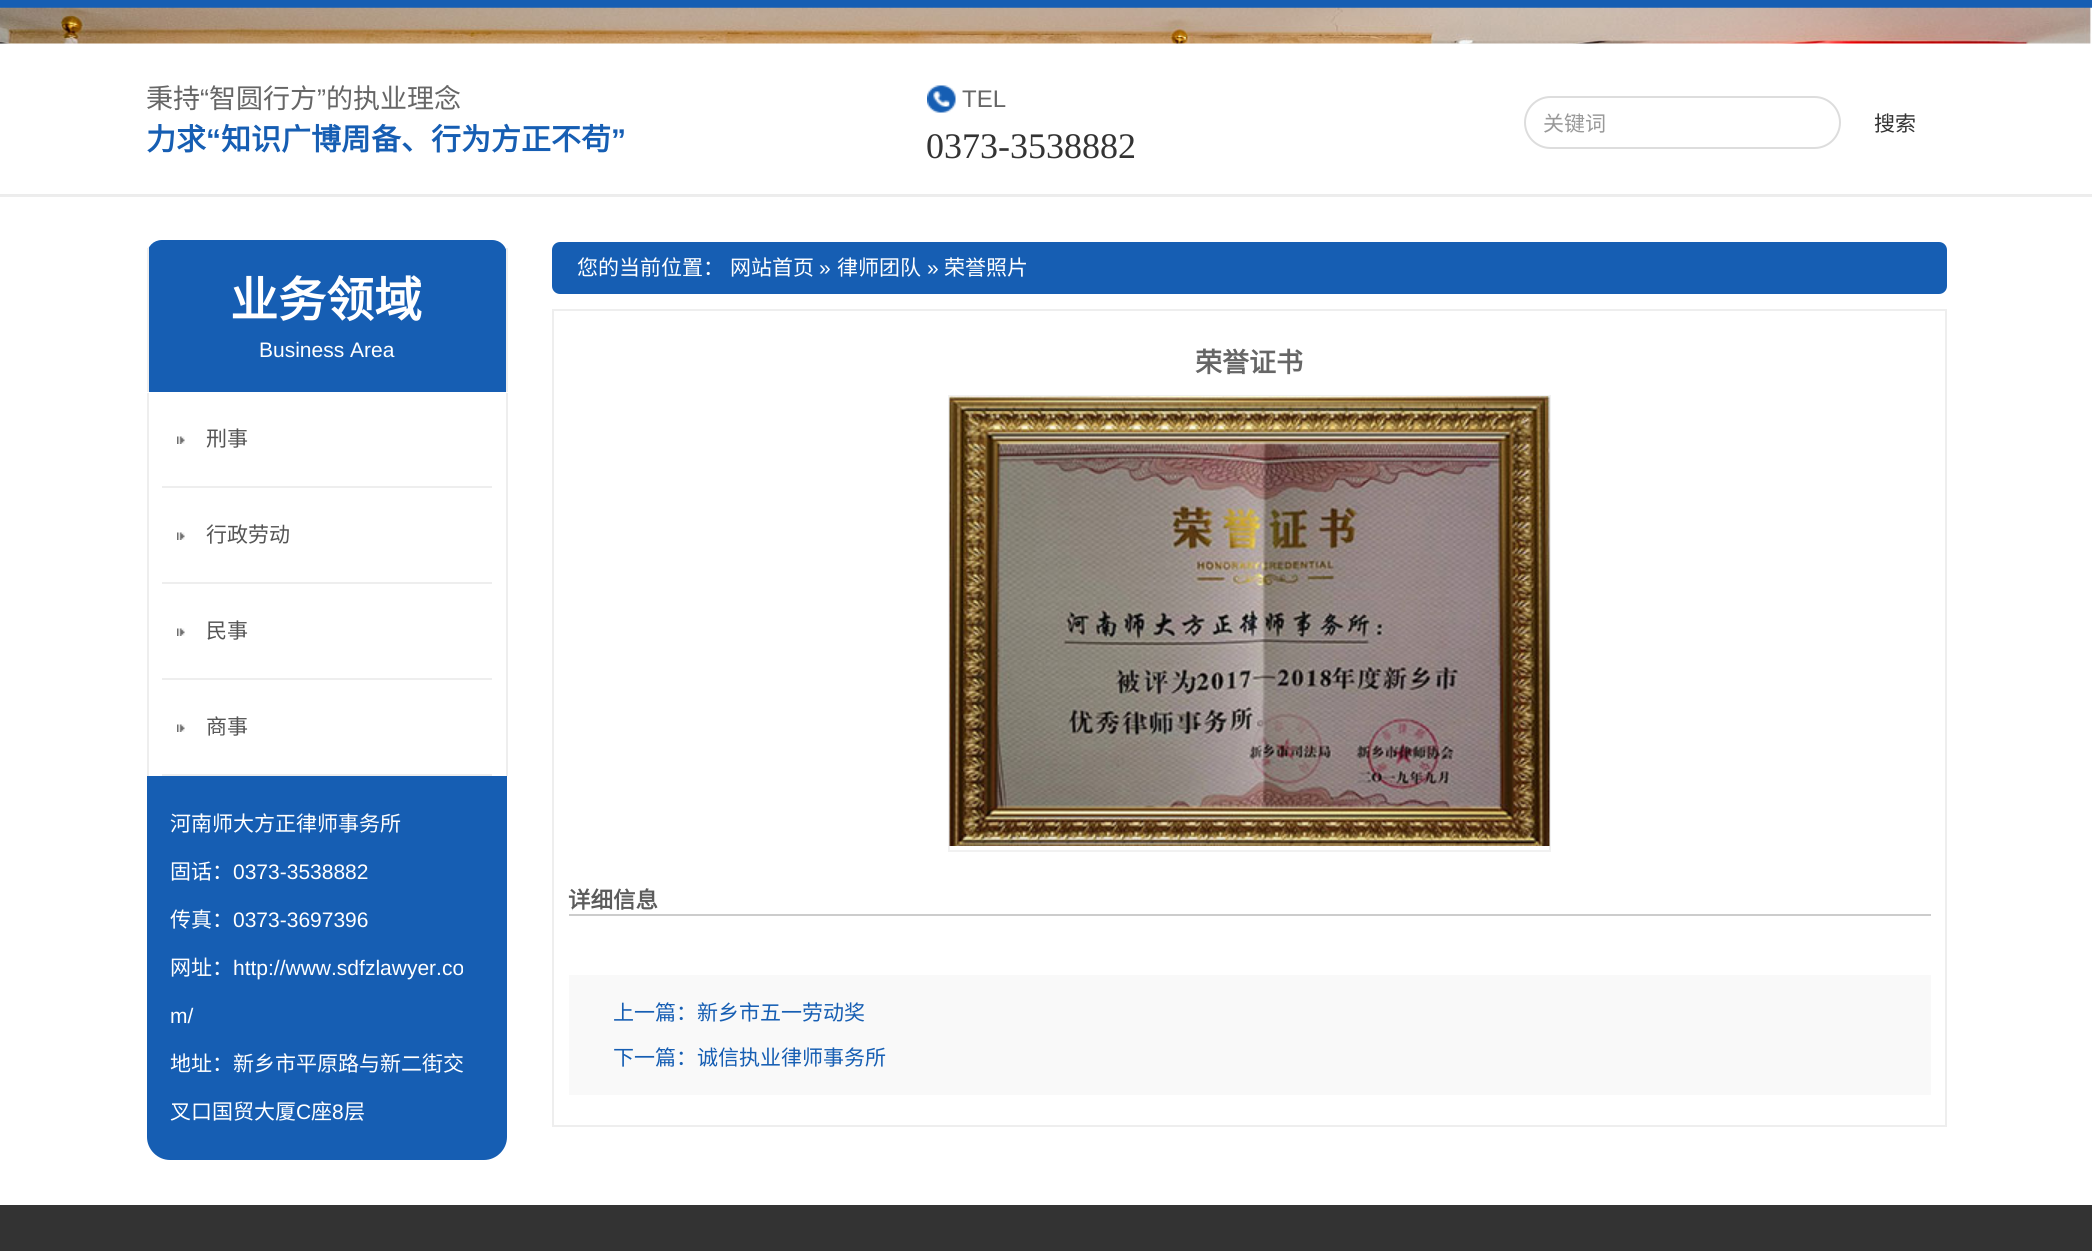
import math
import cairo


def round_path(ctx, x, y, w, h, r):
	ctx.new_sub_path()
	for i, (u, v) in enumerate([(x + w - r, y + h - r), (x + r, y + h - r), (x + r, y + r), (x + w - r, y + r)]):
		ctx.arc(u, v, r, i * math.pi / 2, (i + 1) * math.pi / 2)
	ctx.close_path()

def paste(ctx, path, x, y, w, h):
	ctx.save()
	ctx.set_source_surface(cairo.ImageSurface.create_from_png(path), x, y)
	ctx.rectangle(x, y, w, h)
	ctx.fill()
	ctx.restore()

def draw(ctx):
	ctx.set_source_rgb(1, 1, 1)
	ctx.paint()
	ctx.set_source_rgb(0.086, 0.369, 0.702)
	ctx.rectangle(0, 0, 2092, 8)
	ctx.fill()
	paste(ctx, 'media/1.png', 0, 7, 2092, 37)
	ctx.set_source_rgb(0.922, 0.922, 0.922)
	ctx.rectangle(0, 194, 2092, 1)
	ctx.fill()
	ctx.select_font_face('Noto Sans CJK SC')
	ctx.set_font_size(27)
	ctx.set_source_rgb(0.4, 0.4, 0.4)
	ctx.move_to(146, 108)
	ctx.show_text('秉持')
	ctx.select_font_face('Liberation Sans')
	ctx.move_to(200, 108)
	ctx.show_text('“')
	ctx.select_font_face('Noto Sans CJK SC')
	ctx.move_to(209, 108)
	ctx.show_text('智圆行方')
	ctx.select_font_face('Liberation Sans')
	ctx.move_to(317, 108)
	ctx.show_text('”')
	ctx.select_font_face('Noto Sans CJK SC')
	ctx.move_to(326, 108)
	ctx.show_text('的执业理念')
	ctx.select_font_face('Noto Sans CJK SC', cairo.FONT_SLANT_NORMAL, cairo.FONT_WEIGHT_BOLD)
	ctx.set_font_size(30)
	ctx.set_source_rgb(0.086, 0.369, 0.702)
	ctx.move_to(146, 150)
	ctx.show_text('力求')
	ctx.select_font_face('Liberation Sans', cairo.FONT_SLANT_NORMAL, cairo.FONT_WEIGHT_BOLD)
	ctx.move_to(206, 150)
	ctx.show_text('“')
	ctx.select_font_face('Noto Sans CJK SC', cairo.FONT_SLANT_NORMAL, cairo.FONT_WEIGHT_BOLD)
	ctx.move_to(221, 150)
	ctx.show_text('知识广博周备、行为方正不苟')
	ctx.select_font_face('Liberation Sans', cairo.FONT_SLANT_NORMAL, cairo.FONT_WEIGHT_BOLD)
	ctx.move_to(611, 150)
	ctx.show_text('”')
	paste(ctx, 'media/2.png', 927, 85, 29, 28)
	ctx.select_font_face('Liberation Sans')
	ctx.set_font_size(24)
	ctx.set_source_rgb(0.4, 0.4, 0.4)
	ctx.move_to(962, 107)
	ctx.show_text('TEL')
	ctx.select_font_face('Liberation Serif')
	ctx.set_font_size(36)
	ctx.set_source_rgb(0.2, 0.2, 0.2)
	ctx.move_to(926, 158)
	ctx.show_text('0373-3538882')
	round_path(ctx, 1525, 97, 315, 51, 25.5)
	ctx.set_source_rgb(0.867, 0.867, 0.867)
	ctx.stroke()
	ctx.select_font_face('Noto Sans CJK SC')
	ctx.set_font_size(21)
	ctx.set_source_rgb(0.6, 0.6, 0.6)
	ctx.move_to(1543, 131)
	ctx.show_text('关键词')
	ctx.set_source_rgb(0.2, 0.2, 0.2)
	ctx.move_to(1874, 131)
	ctx.show_text('搜索')
	ctx.set_source_rgb(0.929, 0.929, 0.929)
	ctx.rectangle(0, 195, 2092, 2)
	ctx.fill()
	ctx.set_source_rgb(0.086, 0.369, 0.702)
	ctx.new_path()
	ctx.move_to(162, 240)
	ctx.line_to(492, 240)
	ctx.curve_to(500.5, 240, 507, 246.5, 507, 255)
	ctx.line_to(507, 392)
	ctx.line_to(147, 392)
	ctx.line_to(147, 255)
	ctx.curve_to(147, 246.5, 153.5, 240, 162, 240)
	ctx.close_path()
	ctx.fill()
	ctx.set_source_rgb(0.933, 0.933, 0.933)
	ctx.rectangle(506, 248, 2, 144)
	ctx.fill()
	ctx.rectangle(147, 248, 2, 144)
	ctx.fill()
	ctx.select_font_face('Noto Sans CJK SC', cairo.FONT_SLANT_NORMAL, cairo.FONT_WEIGHT_BOLD)
	ctx.set_font_size(48)
	ctx.set_source_rgb(1, 1, 1)
	ctx.move_to(230, 317)
	ctx.show_text('业务领域')
	ctx.select_font_face('Liberation Sans')
	ctx.set_font_size(21)
	ctx.move_to(259, 357)
	ctx.show_text('Business Area')
	ctx.set_source_rgb(0.933, 0.933, 0.933)
	ctx.rectangle(506, 393, 2, 383)
	ctx.fill()
	ctx.rectangle(147, 393, 2, 383)
	ctx.fill()
	paste(ctx, 'media/3.png', 177, 436, 8, 8)
	ctx.rectangle(162, 486, 330, 2)
	ctx.fill()
	ctx.select_font_face('Noto Sans CJK SC')
	ctx.set_source_rgb(0.333, 0.333, 0.333)
	ctx.move_to(206, 446)
	ctx.show_text('刑事')
	paste(ctx, 'media/3.png', 177, 532, 8, 8)
	ctx.set_source_rgb(0.933, 0.933, 0.933)
	ctx.rectangle(162, 582, 330, 2)
	ctx.fill()
	ctx.set_source_rgb(0.333, 0.333, 0.333)
	ctx.move_to(206, 542)
	ctx.show_text('行政劳动')
	paste(ctx, 'media/3.png', 177, 628, 8, 8)
	ctx.set_source_rgb(0.933, 0.933, 0.933)
	ctx.rectangle(162, 678, 330, 2)
	ctx.fill()
	ctx.set_source_rgb(0.333, 0.333, 0.333)
	ctx.move_to(206, 638)
	ctx.show_text('民事')
	paste(ctx, 'media/3.png', 177, 724, 8, 8)
	ctx.set_source_rgb(0.933, 0.933, 0.933)
	ctx.rectangle(162, 774, 330, 2)
	ctx.fill()
	ctx.set_source_rgb(0.333, 0.333, 0.333)
	ctx.move_to(206, 734)
	ctx.show_text('商事')
	ctx.set_source_rgb(0.086, 0.369, 0.702)
	ctx.new_path()
	ctx.move_to(147, 776)
	ctx.line_to(507, 776)
	ctx.line_to(507, 1137)
	ctx.curve_to(507, 1149.5, 496.5, 1160, 484, 1160)
	ctx.line_to(170, 1160)
	ctx.curve_to(157.5, 1160, 147, 1149.5, 147, 1137)
	ctx.close_path()
	ctx.fill()
	ctx.set_source_rgb(1, 1, 1)
	ctx.move_to(170, 831)
	ctx.show_text('河南师大方正律师事务所')
	ctx.move_to(170, 879)
	ctx.show_text('固话：')
	ctx.select_font_face('Liberation Sans')
	ctx.move_to(233, 879)
	ctx.show_text('0373-3538882')
	ctx.select_font_face('Noto Sans CJK SC')
	ctx.move_to(170, 927)
	ctx.show_text('传真：')
	ctx.select_font_face('Liberation Sans')
	ctx.move_to(233, 927)
	ctx.show_text('0373-3697396')
	ctx.select_font_face('Noto Sans CJK SC')
	ctx.move_to(170, 975)
	ctx.show_text('网址：')
	ctx.select_font_face('Liberation Sans')
	ctx.move_to(233, 975)
	ctx.show_text('http://www.sdfzlawyer.co')
	ctx.move_to(170, 1023)
	ctx.show_text('m/')
	ctx.select_font_face('Noto Sans CJK SC')
	ctx.move_to(170, 1071)
	ctx.show_text('地址：新乡市平原路与新二街交')
	ctx.move_to(170, 1119)
	ctx.show_text('叉口国贸大厦')
	ctx.select_font_face('Liberation Sans')
	ctx.move_to(296, 1119)
	ctx.show_text('C')
	ctx.select_font_face('Noto Sans CJK SC')
	ctx.move_to(311, 1119)
	ctx.show_text('座')
	ctx.select_font_face('Liberation Sans')
	ctx.move_to(332, 1119)
	ctx.show_text('8')
	ctx.select_font_face('Noto Sans CJK SC')
	ctx.move_to(344, 1119)
	ctx.show_text('层')
	ctx.set_source_rgb(0.086, 0.369, 0.702)
	round_path(ctx, 552, 242, 1395, 52, 8)
	ctx.fill()
	ctx.set_source_rgb(1, 1, 1)
	ctx.move_to(577, 275)
	ctx.show_text('您的当前位置：')
	ctx.move_to(730, 275)
	ctx.show_text('网站首页')
	ctx.select_font_face('Liberation Sans')
	ctx.move_to(819, 275)
	ctx.show_text('»')
	ctx.select_font_face('Noto Sans CJK SC')
	ctx.move_to(837, 275)
	ctx.show_text('律师团队')
	ctx.select_font_face('Liberation Sans')
	ctx.move_to(927, 275)
	ctx.show_text('»')
	ctx.select_font_face('Noto Sans CJK SC')
	ctx.move_to(944, 275)
	ctx.show_text('荣誉照片')
	ctx.rectangle(553, 310, 1393, 816)
	ctx.set_source_rgb(0.933, 0.933, 0.933)
	ctx.stroke()
	ctx.select_font_face('Noto Sans CJK SC', cairo.FONT_SLANT_NORMAL, cairo.FONT_WEIGHT_BOLD)
	ctx.set_font_size(27)
	ctx.set_source_rgb(0.4, 0.4, 0.4)
	ctx.move_to(1195, 372)
	ctx.show_text('荣誉证书')
	ctx.rectangle(949, 396, 601, 455)
	ctx.set_source_rgb(0.945, 0.945, 0.945)
	ctx.stroke()
	paste(ctx, 'media/4.png', 949, 396, 601, 450)
	ctx.set_source_rgb(0.8, 0.8, 0.8)
	ctx.rectangle(569, 914, 1362, 2)
	ctx.fill()
	ctx.set_font_size(22.5)
	ctx.set_source_rgb(0.361, 0.361, 0.361)
	ctx.move_to(568, 908)
	ctx.show_text('详细信息')
	ctx.set_source_rgb(0.976, 0.976, 0.976)
	ctx.rectangle(569, 975, 1362, 120)
	ctx.fill()
	ctx.select_font_face('Noto Sans CJK SC')
	ctx.set_font_size(21)
	ctx.set_source_rgb(0.086, 0.369, 0.702)
	ctx.move_to(613, 1020)
	ctx.show_text('上一篇：新乡市五一劳动奖')
	ctx.move_to(613, 1065)
	ctx.show_text('下一篇：诚信执业律师事务所')
	ctx.set_source_rgb(0.2, 0.2, 0.2)
	ctx.rectangle(0, 1205, 2092, 46)
	ctx.fill()


surface = cairo.ImageSurface(cairo.FORMAT_RGB24, 2092, 1251)
ctx = cairo.Context(surface)
options = cairo.FontOptions()
options.set_hint_metrics(cairo.HINT_METRICS_OFF)
options.set_hint_style(cairo.HINT_STYLE_NONE)
ctx.set_font_options(options)
ctx.set_miter_limit(4)
draw(ctx)
surface.write_to_png('image.png')
